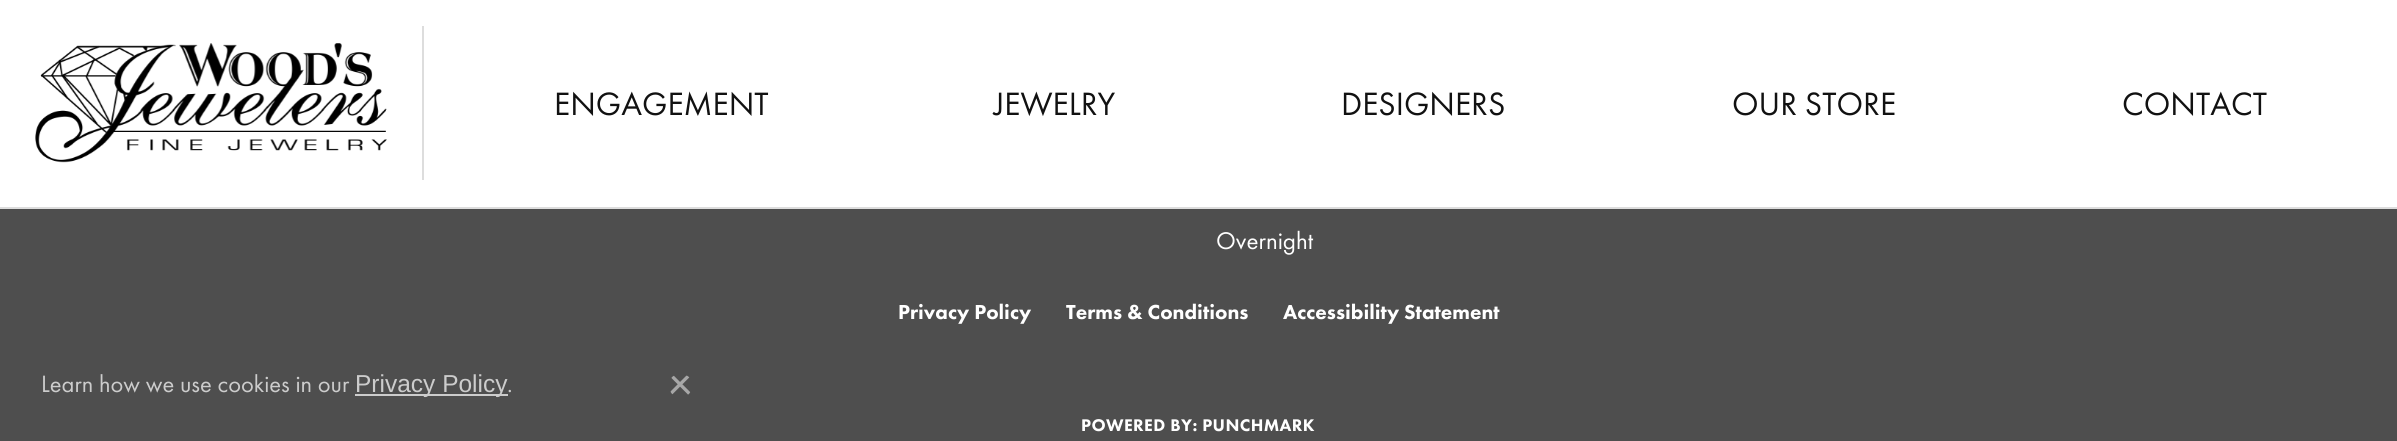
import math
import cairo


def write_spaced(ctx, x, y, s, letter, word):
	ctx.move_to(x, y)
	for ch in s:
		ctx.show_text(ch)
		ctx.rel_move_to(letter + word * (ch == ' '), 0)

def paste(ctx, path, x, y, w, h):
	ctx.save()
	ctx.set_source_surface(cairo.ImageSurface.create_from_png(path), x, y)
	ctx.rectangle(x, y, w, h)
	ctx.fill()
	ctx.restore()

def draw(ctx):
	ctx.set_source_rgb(0.306, 0.306, 0.306)
	ctx.paint()
	ctx.set_source_rgb(1, 1, 1)
	ctx.rectangle(0, 0, 2397, 207)
	ctx.fill()
	ctx.set_source_rgb(0.867, 0.867, 0.867)
	ctx.rectangle(0, 207, 2397, 2)
	ctx.rectangle(422, 26, 2, 154)
	ctx.fill()
	paste(ctx, 'media/1.png', 35, 43, 352, 120)
	ctx.select_font_face('Futura PT')
	ctx.set_font_size(33.5)
	ctx.set_source_rgb(0.067, 0.067, 0.067)
	for x, y, s in [
		(554, 115, 'ENGAGEMENT'),
		(994, 115, 'JEWELRY'),
		(1341, 115, 'DESIGNERS'),
		(1732, 115, 'OUR STORE'),
		(2122, 115, 'CONTACT'),
	]:
		ctx.move_to(x, y)
		ctx.show_text(s)
	ctx.set_font_size(24.5)
	ctx.set_source_rgb(0.8, 0.8, 0.8)
	ctx.move_to(41, 392)
	ctx.show_text('Learn how we use cookies in our')
	ctx.rectangle(355, 394, 153, 2)
	ctx.fill()
	ctx.select_font_face('Liberation Sans')
	ctx.move_to(355, 392)
	ctx.show_text('Privacy Policy')
	ctx.select_font_face('Futura PT')
	ctx.move_to(507, 392)
	ctx.show_text('.')
	paste(ctx, 'media/2.png', 670, 375, 21, 20)
	ctx.set_font_size(25)
	ctx.set_source_rgb(1, 1, 1)
	ctx.move_to(1216, 249)
	ctx.show_text('Overnight')
	ctx.select_font_face('Futura PT Black')
	ctx.set_font_size(21)
	for x, y, s in [
		(898, 319, 'Privacy Policy'),
		(1066, 319, 'Terms & Conditions'),
		(1283, 319, 'Accessibility Statement'),
	]:
		ctx.move_to(x, y)
		ctx.show_text(s)
	ctx.set_font_size(17.5)
	write_spaced(ctx, 1081, 431, 'POWERED BY: PUNCHMARK', 0.4, 0)


surface = cairo.ImageSurface(cairo.FORMAT_RGB24, 2397, 441)
ctx = cairo.Context(surface)
options = cairo.FontOptions()
options.set_hint_metrics(cairo.HINT_METRICS_OFF)
options.set_hint_style(cairo.HINT_STYLE_NONE)
ctx.set_font_options(options)
ctx.set_miter_limit(4)
draw(ctx)
surface.write_to_png('image.png')
